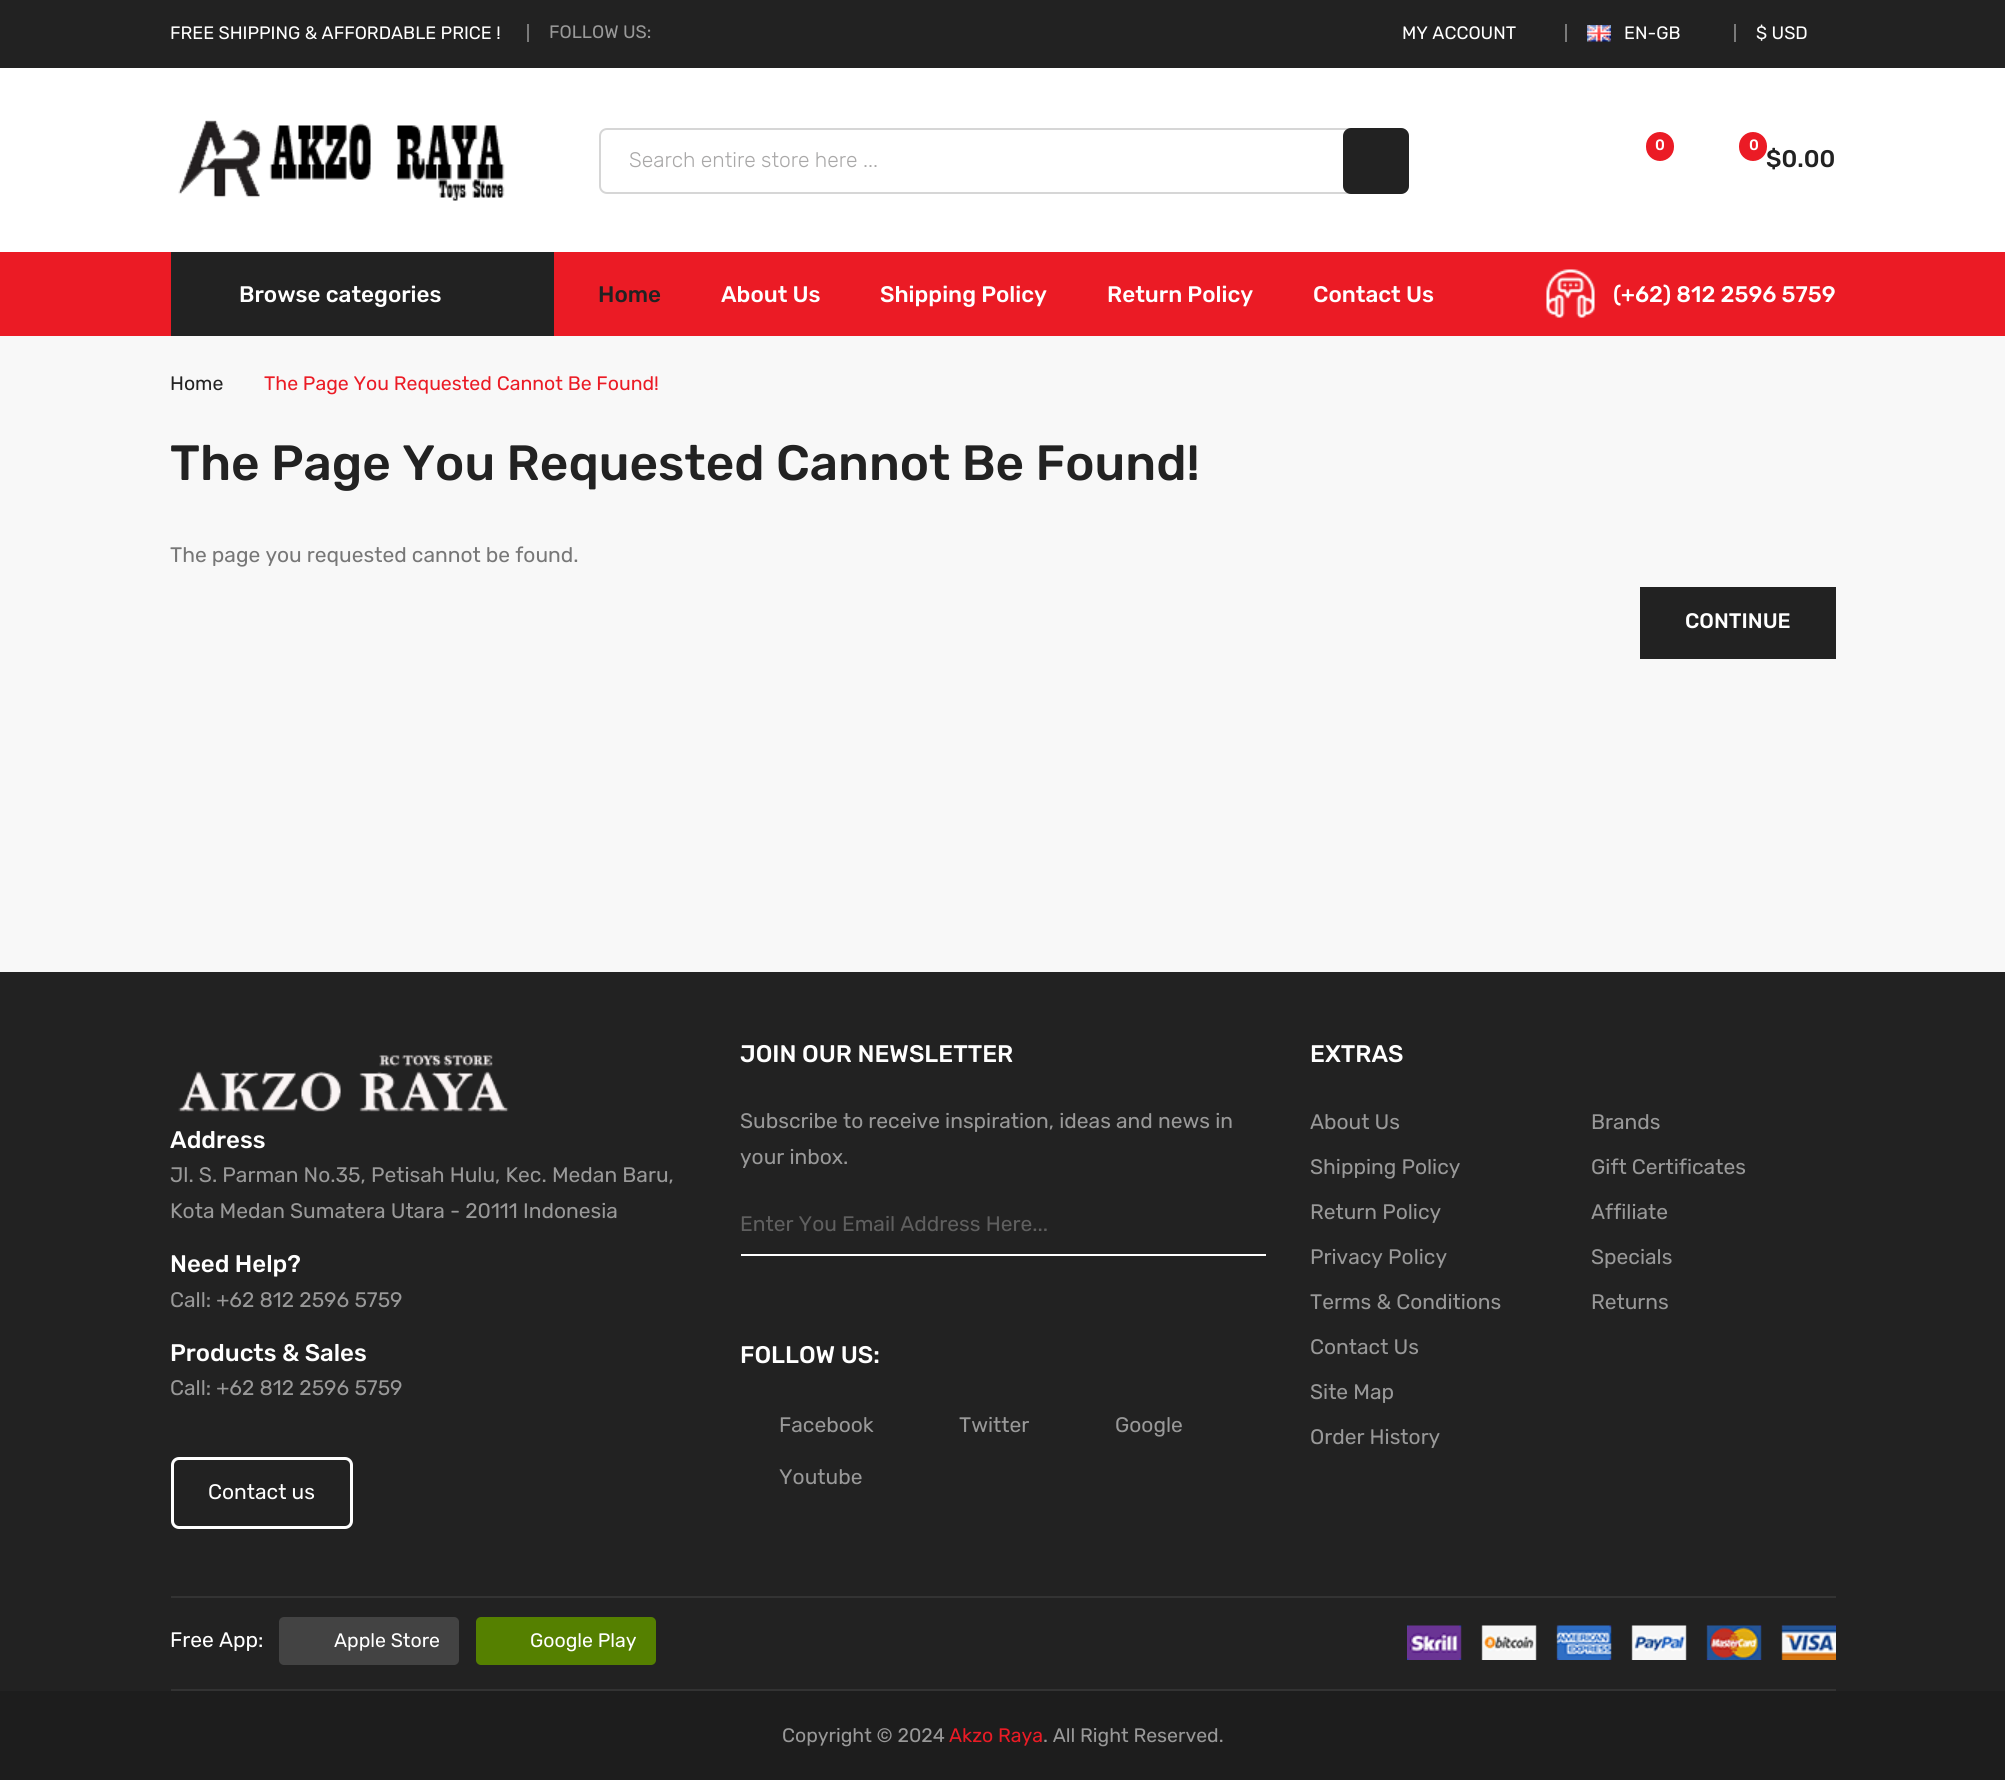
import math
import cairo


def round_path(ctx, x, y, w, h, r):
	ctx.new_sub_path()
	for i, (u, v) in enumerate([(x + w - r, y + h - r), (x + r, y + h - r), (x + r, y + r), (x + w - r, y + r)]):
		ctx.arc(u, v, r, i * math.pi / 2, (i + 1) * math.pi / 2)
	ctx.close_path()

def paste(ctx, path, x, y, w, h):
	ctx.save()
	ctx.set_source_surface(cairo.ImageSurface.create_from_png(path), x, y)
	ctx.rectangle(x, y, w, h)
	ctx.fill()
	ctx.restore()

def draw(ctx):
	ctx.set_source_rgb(0.969, 0.969, 0.969)
	ctx.paint()
	ctx.set_source_rgb(0.133, 0.133, 0.133)
	ctx.rectangle(0, 0, 2005, 68)
	ctx.fill()
	ctx.select_font_face('Rubik')
	ctx.set_font_size(18)
	ctx.set_source_rgb(1, 1, 1)
	ctx.move_to(170, 39)
	ctx.show_text('FREE SHIPPING & AFFORDABLE PRICE !')
	ctx.set_source_rgb(0.478, 0.478, 0.478)
	ctx.rectangle(527, 24, 2, 18)
	ctx.fill()
	ctx.set_source_rgb(0.6, 0.6, 0.6)
	ctx.move_to(549, 38)
	ctx.show_text('FOLLOW US:')
	ctx.set_source_rgb(1, 1, 1)
	ctx.move_to(1402, 39)
	ctx.show_text('MY ACCOUNT')
	ctx.set_source_rgb(0.478, 0.478, 0.478)
	ctx.rectangle(1565, 24, 2, 18)
	ctx.fill()
	paste(ctx, 'media/1.png', 1587, 25, 24, 17)
	ctx.set_source_rgb(1, 1, 1)
	ctx.move_to(1624, 39)
	ctx.show_text('EN-GB')
	ctx.set_source_rgb(0.478, 0.478, 0.478)
	ctx.rectangle(1734, 24, 2, 18)
	ctx.fill()
	ctx.set_source_rgb(1, 1, 1)
	ctx.move_to(1756, 39)
	ctx.show_text('$ USD')
	ctx.rectangle(0, 68, 2005, 184)
	ctx.fill()
	round_path(ctx, 600, 129, 808, 64, 7)
	ctx.set_source_rgb(0.839, 0.839, 0.839)
	ctx.stroke()
	ctx.select_font_face('Rubik Light')
	ctx.set_font_size(21)
	ctx.set_source_rgb(0.663, 0.659, 0.659)
	ctx.move_to(629, 167)
	ctx.show_text('Search entire store here ...')
	ctx.set_source_rgb(0.133, 0.133, 0.133)
	round_path(ctx, 1343, 128, 66, 66, 8)
	ctx.fill()
	paste(ctx, 'media/2.png', 178, 120, 327, 81)
	ctx.set_source_rgb(0.918, 0.106, 0.145)
	round_path(ctx, 1646, 132, 28, 29, 14)
	ctx.fill()
	ctx.select_font_face('Rubik Medium')
	ctx.set_font_size(15)
	ctx.set_source_rgb(1, 1, 1)
	ctx.move_to(1655, 150)
	ctx.show_text('0')
	ctx.set_font_size(24)
	ctx.set_source_rgb(0.133, 0.133, 0.133)
	ctx.move_to(1766, 167)
	ctx.show_text('$0.00')
	ctx.set_source_rgb(0.918, 0.106, 0.145)
	round_path(ctx, 1739, 132, 28, 29, 14)
	ctx.fill()
	ctx.set_font_size(15)
	ctx.set_source_rgb(1, 1, 1)
	ctx.move_to(1749, 150)
	ctx.show_text('0')
	ctx.set_source_rgb(0.918, 0.106, 0.145)
	ctx.rectangle(0, 252, 2005, 84)
	ctx.fill()
	ctx.set_source_rgb(0.133, 0.133, 0.133)
	ctx.rectangle(171, 252, 383, 84)
	ctx.fill()
	ctx.set_font_size(22.5)
	ctx.set_source_rgb(1, 1, 1)
	ctx.move_to(239, 302)
	ctx.show_text('Browse categories')
	ctx.set_source_rgb(0.133, 0.133, 0.133)
	ctx.move_to(598, 302)
	ctx.show_text('Home')
	ctx.set_source_rgb(1, 1, 1)
	for x, y, s in [
		(721, 302, 'About Us'),
		(880, 302, 'Shipping Policy'),
		(1107, 302, 'Return Policy'),
		(1313, 302, 'Contact Us'),
	]:
		ctx.move_to(x, y)
		ctx.show_text(s)
	paste(ctx, 'media/3.png', 1546, 269, 49, 49)
	ctx.move_to(1613, 302)
	ctx.show_text('(+62) 812 2596 5759')
	ctx.select_font_face('Rubik')
	ctx.set_font_size(19.5)
	ctx.set_source_rgb(0.133, 0.133, 0.133)
	ctx.move_to(170, 390)
	ctx.show_text('Home')
	ctx.set_source_rgb(0.918, 0.106, 0.145)
	ctx.move_to(264, 390)
	ctx.show_text('The Page You Requested Cannot Be Found!')
	ctx.select_font_face('Rubik Medium')
	ctx.set_font_size(49.5)
	ctx.set_source_rgb(0.133, 0.133, 0.133)
	ctx.move_to(170, 480)
	ctx.show_text('The Page You Requested Cannot Be Found!')
	ctx.select_font_face('Rubik')
	ctx.set_font_size(21)
	ctx.set_source_rgb(0.467, 0.467, 0.467)
	ctx.move_to(170, 562)
	ctx.show_text('The page you requested cannot be found.')
	ctx.set_source_rgb(0.133, 0.133, 0.133)
	ctx.rectangle(1640, 587, 196, 72)
	ctx.fill()
	ctx.select_font_face('Rubik Medium')
	ctx.set_source_rgb(1, 1, 1)
	ctx.move_to(1685, 628)
	ctx.show_text('CONTINUE')
	ctx.set_source_rgb(0.133, 0.133, 0.133)
	ctx.rectangle(0, 972, 2005, 719)
	ctx.fill()
	paste(ctx, 'media/4.png', 178, 1055, 331, 57)
	ctx.set_font_size(24)
	ctx.set_source_rgb(1, 1, 1)
	ctx.move_to(170, 1148)
	ctx.show_text('Address')
	ctx.select_font_face('Rubik')
	ctx.set_font_size(21)
	ctx.set_source_rgb(0.6, 0.6, 0.6)
	ctx.move_to(170, 1182)
	ctx.show_text('Jl. S. Parman No.35, Petisah Hulu, Kec. Medan Baru,')
	ctx.move_to(170, 1218)
	ctx.show_text('Kota Medan Sumatera Utara - 20111 Indonesia')
	ctx.select_font_face('Rubik Medium')
	ctx.set_font_size(24)
	ctx.set_source_rgb(1, 1, 1)
	ctx.move_to(170, 1272)
	ctx.show_text('Need Help?')
	ctx.select_font_face('Rubik')
	ctx.set_font_size(21)
	ctx.set_source_rgb(0.6, 0.6, 0.6)
	ctx.move_to(170, 1307)
	ctx.show_text('Call: +62 812 2596 5759')
	ctx.select_font_face('Rubik Medium')
	ctx.set_font_size(24)
	ctx.set_source_rgb(1, 1, 1)
	ctx.move_to(170, 1361)
	ctx.show_text('Products & Sales')
	ctx.select_font_face('Rubik')
	ctx.set_font_size(21)
	ctx.set_source_rgb(0.6, 0.6, 0.6)
	ctx.move_to(170, 1395)
	ctx.show_text('Call: +62 812 2596 5759')
	round_path(ctx, 172.5, 1458.5, 179, 69, 6.5)
	ctx.set_source_rgb(1, 1, 1)
	ctx.set_line_width(3)
	ctx.stroke()
	ctx.move_to(208, 1499)
	ctx.show_text('Contact us')
	ctx.select_font_face('Rubik Medium')
	ctx.set_font_size(24)
	ctx.move_to(740, 1062)
	ctx.show_text('JOIN OUR NEWSLETTER')
	ctx.select_font_face('Rubik')
	ctx.set_font_size(21)
	ctx.set_source_rgb(0.6, 0.6, 0.6)
	ctx.move_to(740, 1128)
	ctx.show_text('Subscribe to receive inspiration, ideas and news in')
	ctx.move_to(740, 1164)
	ctx.show_text('your inbox.')
	ctx.set_source_rgb(1, 1, 1)
	ctx.rectangle(741, 1254, 525, 2)
	ctx.fill()
	ctx.set_source_rgb(0.373, 0.373, 0.373)
	ctx.move_to(740, 1231)
	ctx.show_text('Enter You Email Address Here...')
	ctx.select_font_face('Rubik Medium')
	ctx.set_font_size(24)
	ctx.set_source_rgb(1, 1, 1)
	ctx.move_to(740, 1363)
	ctx.show_text('FOLLOW US:')
	ctx.select_font_face('Rubik')
	ctx.set_font_size(21)
	ctx.set_source_rgb(0.6, 0.6, 0.6)
	for x, y, s in [
		(779, 1432, 'Facebook'),
		(959, 1432, 'Twitter'),
		(1115, 1432, 'Google'),
		(779, 1484, 'Youtube'),
	]:
		ctx.move_to(x, y)
		ctx.show_text(s)
	ctx.select_font_face('Rubik Medium')
	ctx.set_font_size(24)
	ctx.set_source_rgb(1, 1, 1)
	ctx.move_to(1310, 1062)
	ctx.show_text('EXTRAS')
	ctx.select_font_face('Rubik')
	ctx.set_font_size(21)
	ctx.set_source_rgb(0.6, 0.6, 0.6)
	for x, y, s in [
		(1310, 1129, 'About Us'),
		(1310, 1174, 'Shipping Policy'),
		(1310, 1219, 'Return Policy'),
		(1310, 1264, 'Privacy Policy'),
		(1310, 1309, 'Terms & Conditions'),
		(1310, 1354, 'Contact Us'),
		(1310, 1399, 'Site Map'),
		(1310, 1444, 'Order History'),
		(1591, 1129, 'Brands'),
		(1591, 1174, 'Gift Certificates'),
		(1591, 1219, 'Affiliate'),
		(1591, 1264, 'Specials'),
		(1591, 1309, 'Returns'),
	]:
		ctx.move_to(x, y)
		ctx.show_text(s)
	ctx.set_source_rgb(0.2, 0.2, 0.2)
	ctx.rectangle(171, 1596, 1665, 2)
	ctx.fill()
	ctx.rectangle(171, 1689, 1665, 2)
	ctx.fill()
	ctx.set_source_rgb(1, 1, 1)
	ctx.move_to(170, 1647)
	ctx.show_text('Free App:')
	ctx.set_source_rgb(0.263, 0.263, 0.263)
	round_path(ctx, 279, 1617, 180, 48, 5)
	ctx.fill()
	ctx.set_font_size(19.5)
	ctx.set_source_rgb(1, 1, 1)
	ctx.move_to(334, 1647)
	ctx.show_text('Apple Store')
	ctx.set_source_rgb(0.333, 0.502, 0)
	round_path(ctx, 476, 1617, 180, 48, 5)
	ctx.fill()
	ctx.set_source_rgb(1, 1, 1)
	ctx.move_to(530, 1647)
	ctx.show_text('Google Play')
	paste(ctx, 'media/5.png', 1407, 1625, 429, 35)
	ctx.set_source_rgb(0.114, 0.114, 0.114)
	ctx.rectangle(0, 1691, 2005, 89)
	ctx.fill()
	ctx.set_source_rgb(0.6, 0.6, 0.6)
	ctx.move_to(782, 1742)
	ctx.show_text('Copyright © 2024')
	ctx.set_source_rgb(0.918, 0.106, 0.145)
	ctx.move_to(949, 1742)
	ctx.show_text('Akzo Raya')
	ctx.set_source_rgb(0.6, 0.6, 0.6)
	ctx.move_to(1043, 1742)
	ctx.show_text('. All Right Reserved.')


surface = cairo.ImageSurface(cairo.FORMAT_RGB24, 2005, 1780)
ctx = cairo.Context(surface)
options = cairo.FontOptions()
options.set_hint_metrics(cairo.HINT_METRICS_OFF)
options.set_hint_style(cairo.HINT_STYLE_NONE)
ctx.set_font_options(options)
ctx.set_miter_limit(4)
draw(ctx)
surface.write_to_png('image.png')
